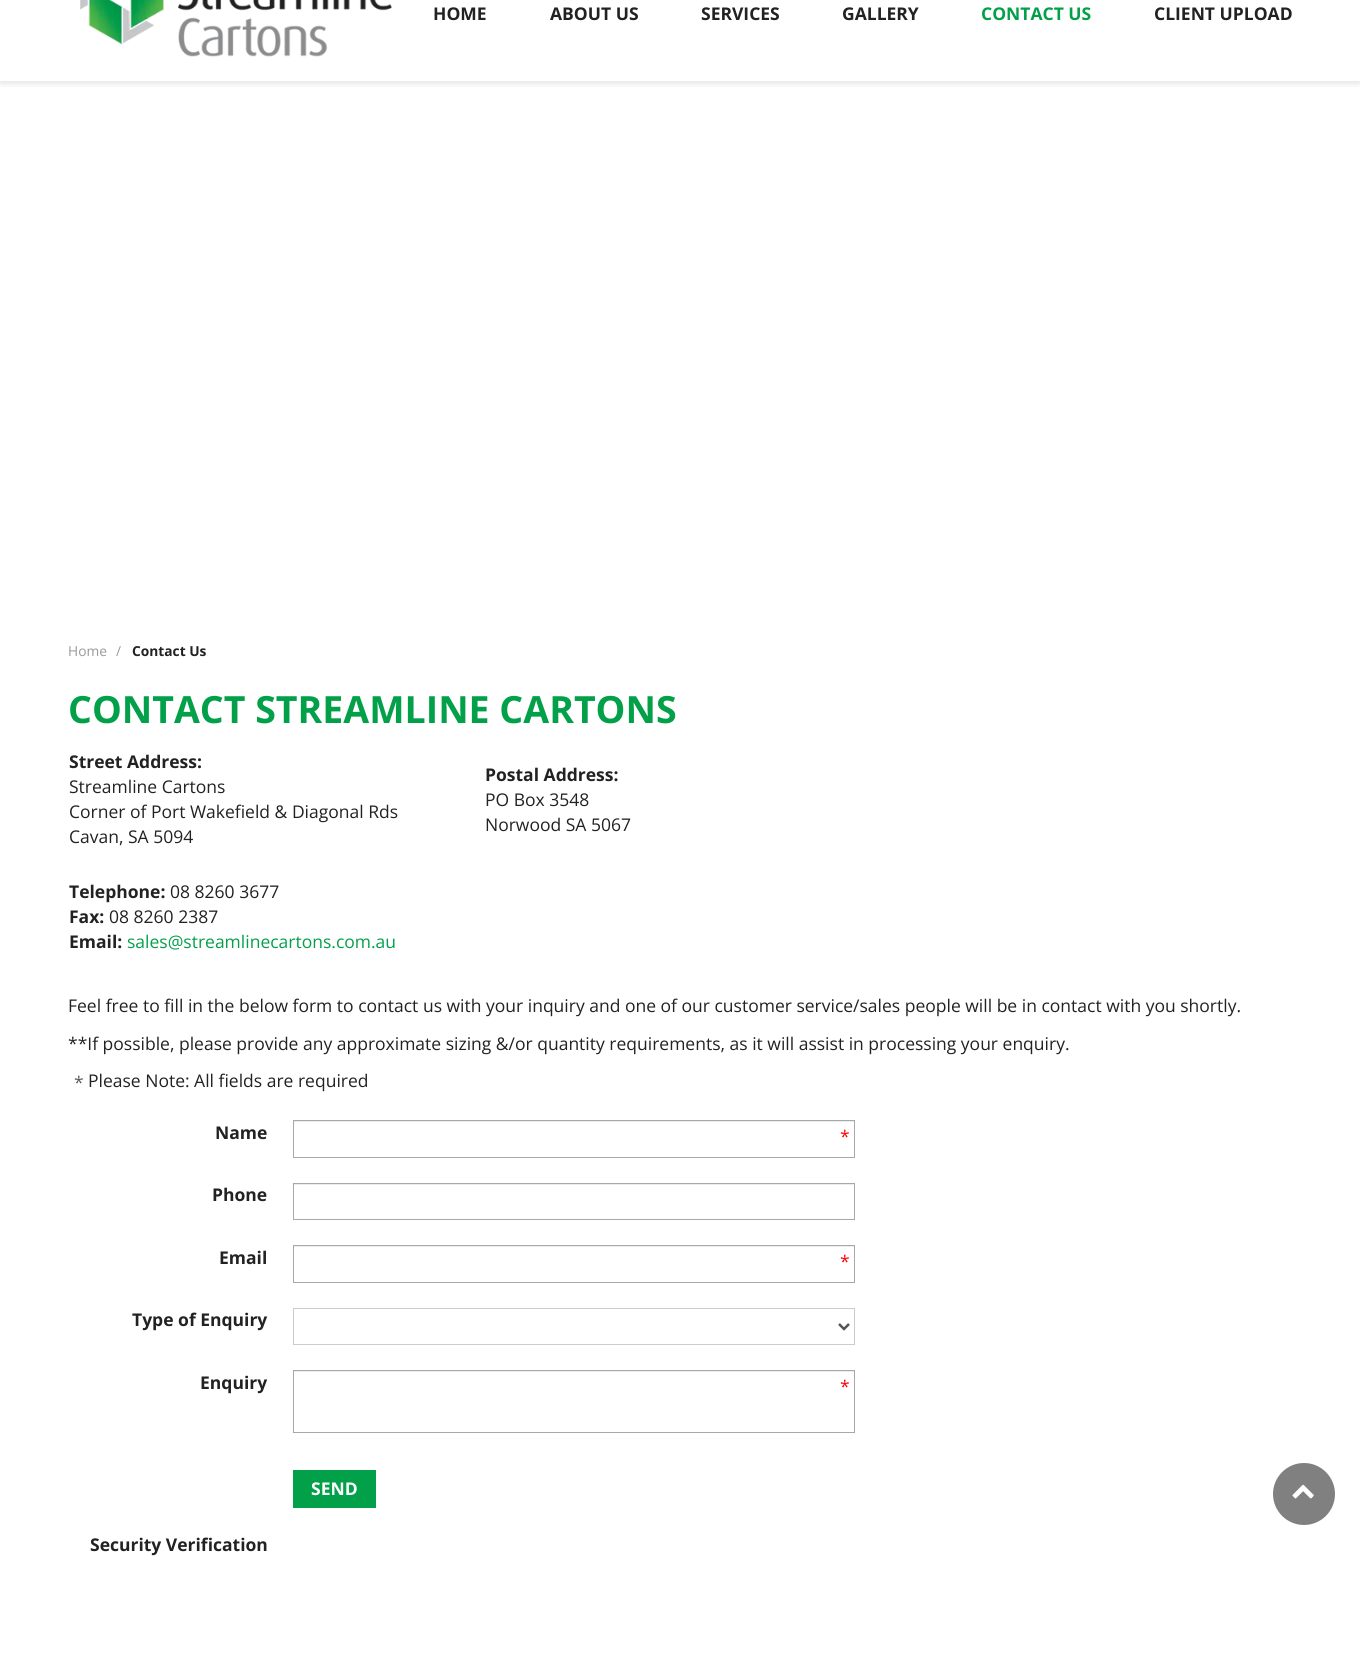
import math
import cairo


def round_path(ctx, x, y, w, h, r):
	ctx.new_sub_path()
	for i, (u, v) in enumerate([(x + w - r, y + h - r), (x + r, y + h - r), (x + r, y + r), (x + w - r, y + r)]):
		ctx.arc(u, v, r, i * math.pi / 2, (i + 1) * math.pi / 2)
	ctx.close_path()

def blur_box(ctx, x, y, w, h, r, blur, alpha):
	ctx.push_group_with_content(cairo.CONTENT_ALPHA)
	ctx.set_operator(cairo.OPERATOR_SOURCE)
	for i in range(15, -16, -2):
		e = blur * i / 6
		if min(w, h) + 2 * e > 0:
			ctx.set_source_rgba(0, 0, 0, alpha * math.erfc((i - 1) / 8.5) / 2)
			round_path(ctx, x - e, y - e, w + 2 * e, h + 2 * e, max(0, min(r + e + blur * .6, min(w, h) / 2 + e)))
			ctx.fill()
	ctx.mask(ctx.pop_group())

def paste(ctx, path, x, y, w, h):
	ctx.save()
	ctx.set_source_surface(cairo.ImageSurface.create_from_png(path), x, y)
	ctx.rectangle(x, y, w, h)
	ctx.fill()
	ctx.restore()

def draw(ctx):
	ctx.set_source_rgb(1, 1, 1)
	ctx.paint()
	ctx.save()
	ctx.rectangle(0, 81, 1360, 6)
	ctx.clip()
	ctx.set_source_rgb(0, 0, 0)
	blur_box(ctx, 0, -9, 1360, 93, 0, 3, 0.1)
	ctx.restore()
	paste(ctx, 'media/1.png', 80, 0, 312, 57)
	ctx.select_font_face('Open Sans', cairo.FONT_SLANT_NORMAL, cairo.FONT_WEIGHT_BOLD)
	ctx.set_font_size(17.5)
	ctx.set_source_rgb(0.133, 0.133, 0.133)
	for x, y, s in [
		(433, 20, 'HOME'),
		(550, 20, 'ABOUT US'),
		(701, 20, 'SERVICES'),
		(842, 20, 'GALLERY'),
	]:
		ctx.move_to(x, y)
		ctx.show_text(s)
	ctx.set_source_rgb(0.012, 0.627, 0.29)
	ctx.move_to(981, 20)
	ctx.show_text('CONTACT US')
	ctx.set_source_rgb(0.133, 0.133, 0.133)
	ctx.move_to(1154, 20)
	ctx.show_text('CLIENT UPLOAD')
	ctx.select_font_face('Open Sans')
	ctx.set_font_size(13.75)
	ctx.set_source_rgb(0.6, 0.6, 0.6)
	ctx.move_to(68, 656)
	ctx.show_text('Home')
	ctx.move_to(116, 656)
	ctx.show_text('/')
	ctx.select_font_face('Open Sans', cairo.FONT_SLANT_NORMAL, cairo.FONT_WEIGHT_BOLD)
	ctx.set_source_rgb(0.133, 0.133, 0.133)
	ctx.move_to(132, 656)
	ctx.show_text('Contact Us')
	ctx.set_font_size(37.5)
	ctx.set_source_rgb(0.012, 0.627, 0.29)
	ctx.move_to(68, 723)
	ctx.show_text('CONTACT STREAMLINE CARTONS')
	ctx.set_font_size(17.5)
	ctx.set_source_rgb(0.133, 0.133, 0.133)
	ctx.move_to(69, 768)
	ctx.show_text('Street Address:')
	ctx.select_font_face('Open Sans')
	for x, y, s in [
		(69, 793, 'Streamline Cartons'),
		(69, 818, 'Corner of Port Wakefield & Diagonal Rds'),
		(69, 843, 'Cavan, SA 5094'),
	]:
		ctx.move_to(x, y)
		ctx.show_text(s)
	ctx.select_font_face('Open Sans', cairo.FONT_SLANT_NORMAL, cairo.FONT_WEIGHT_BOLD)
	ctx.move_to(485, 781)
	ctx.show_text('Postal Address:')
	ctx.select_font_face('Open Sans')
	ctx.move_to(485, 806)
	ctx.show_text('PO Box 3548')
	ctx.move_to(485, 831)
	ctx.show_text('Norwood SA 5067')
	ctx.select_font_face('Open Sans', cairo.FONT_SLANT_NORMAL, cairo.FONT_WEIGHT_BOLD)
	ctx.move_to(69, 898)
	ctx.show_text('Telephone:')
	ctx.select_font_face('Open Sans')
	ctx.move_to(170, 898)
	ctx.show_text('08 8260 3677')
	ctx.select_font_face('Open Sans', cairo.FONT_SLANT_NORMAL, cairo.FONT_WEIGHT_BOLD)
	ctx.move_to(69, 923)
	ctx.show_text('Fax:')
	ctx.select_font_face('Open Sans')
	ctx.move_to(109, 923)
	ctx.show_text('08 8260 2387')
	ctx.select_font_face('Open Sans', cairo.FONT_SLANT_NORMAL, cairo.FONT_WEIGHT_BOLD)
	ctx.move_to(69, 948)
	ctx.show_text('Email:')
	ctx.select_font_face('Open Sans')
	ctx.set_source_rgb(0.012, 0.627, 0.29)
	ctx.move_to(127, 948)
	ctx.show_text('sales@streamlinecartons.com.au')
	ctx.set_source_rgb(0.133, 0.133, 0.133)
	ctx.move_to(68, 1012)
	ctx.show_text('Feel free to fill in the below form to contact us with your inquiry and one of our customer service/sales people will be in contact with you shortly.')
	ctx.move_to(68, 1050)
	ctx.show_text('**If possible, please provide any approximate sizing &/or quantity requirements, as it will assist in processing your enquiry.')
	ctx.set_source_rgb(0.349, 0.349, 0.349)
	ctx.move_to(74, 1089)
	ctx.show_text('*')
	ctx.set_source_rgb(0.133, 0.133, 0.133)
	ctx.move_to(88, 1087)
	ctx.show_text('Please Note: All fields are required')
	ctx.select_font_face('Open Sans', cairo.FONT_SLANT_NORMAL, cairo.FONT_WEIGHT_BOLD)
	ctx.move_to(215, 1139)
	ctx.show_text('Name')
	ctx.set_source_rgb(0.925, 0.925, 0.925)
	ctx.rectangle(294, 1121, 560, 1)
	ctx.fill()
	ctx.rectangle(293.5, 1120.5, 561, 37)
	ctx.set_source_rgb(0.651, 0.659, 0.671)
	ctx.set_line_width(1)
	ctx.stroke()
	ctx.select_font_face('Open Sans')
	ctx.set_source_rgb(1, 0, 0)
	ctx.move_to(840, 1143)
	ctx.show_text('*')
	ctx.select_font_face('Open Sans', cairo.FONT_SLANT_NORMAL, cairo.FONT_WEIGHT_BOLD)
	ctx.set_source_rgb(0.133, 0.133, 0.133)
	ctx.move_to(212, 1201)
	ctx.show_text('Phone')
	ctx.set_source_rgb(0.925, 0.925, 0.925)
	ctx.rectangle(294, 1184, 560, 1)
	ctx.fill()
	ctx.rectangle(293.5, 1183.5, 561, 36)
	ctx.set_source_rgb(0.651, 0.659, 0.671)
	ctx.stroke()
	ctx.set_source_rgb(0.133, 0.133, 0.133)
	ctx.move_to(219, 1264)
	ctx.show_text('Email')
	ctx.set_source_rgb(0.925, 0.925, 0.925)
	ctx.rectangle(294, 1246, 560, 1)
	ctx.fill()
	ctx.rectangle(293.5, 1245.5, 561, 37)
	ctx.set_source_rgb(0.651, 0.659, 0.671)
	ctx.stroke()
	ctx.select_font_face('Open Sans')
	ctx.set_source_rgb(1, 0, 0)
	ctx.move_to(840, 1268)
	ctx.show_text('*')
	ctx.select_font_face('Open Sans', cairo.FONT_SLANT_NORMAL, cairo.FONT_WEIGHT_BOLD)
	ctx.set_source_rgb(0.133, 0.133, 0.133)
	ctx.move_to(132, 1326)
	ctx.show_text('Type of Enquiry')
	ctx.rectangle(293.5, 1308.5, 561, 36)
	ctx.set_source_rgb(0.8, 0.8, 0.8)
	ctx.stroke()
	ctx.new_path()
	ctx.move_to(839, 1324)
	ctx.line_to(844, 1329)
	ctx.line_to(849, 1324)
	ctx.set_source_rgb(0.333, 0.333, 0.333)
	ctx.set_line_width(2.5)
	ctx.stroke()
	ctx.set_source_rgb(0.133, 0.133, 0.133)
	ctx.move_to(200, 1389)
	ctx.show_text('Enquiry')
	ctx.set_source_rgb(0.925, 0.925, 0.925)
	ctx.rectangle(294, 1371, 560, 1)
	ctx.fill()
	ctx.rectangle(293.5, 1370.5, 561, 62)
	ctx.set_source_rgb(0.651, 0.659, 0.671)
	ctx.set_line_width(1)
	ctx.stroke()
	ctx.select_font_face('Open Sans')
	ctx.set_source_rgb(1, 0, 0)
	ctx.move_to(840, 1393)
	ctx.show_text('*')
	ctx.set_source_rgb(0.012, 0.627, 0.29)
	ctx.rectangle(293, 1470, 83, 38)
	ctx.fill()
	ctx.select_font_face('Open Sans', cairo.FONT_SLANT_NORMAL, cairo.FONT_WEIGHT_BOLD)
	ctx.set_source_rgb(1, 1, 1)
	ctx.move_to(311, 1495)
	ctx.show_text('SEND')
	ctx.set_source_rgb(0.133, 0.133, 0.133)
	ctx.move_to(90, 1551)
	ctx.show_text('Security Verification')
	ctx.set_source_rgb(0.502, 0.502, 0.502)
	ctx.new_path()
	ctx.arc(1304, 1494, 31, 0, 2 * math.pi)
	ctx.fill()
	paste(ctx, 'media/2.png', 1292, 1484, 22, 15)


surface = cairo.ImageSurface(cairo.FORMAT_RGB24, 1360, 1674)
ctx = cairo.Context(surface)
options = cairo.FontOptions()
options.set_hint_metrics(cairo.HINT_METRICS_OFF)
options.set_hint_style(cairo.HINT_STYLE_NONE)
ctx.set_font_options(options)
ctx.set_miter_limit(4)
draw(ctx)
surface.write_to_png('image.png')
